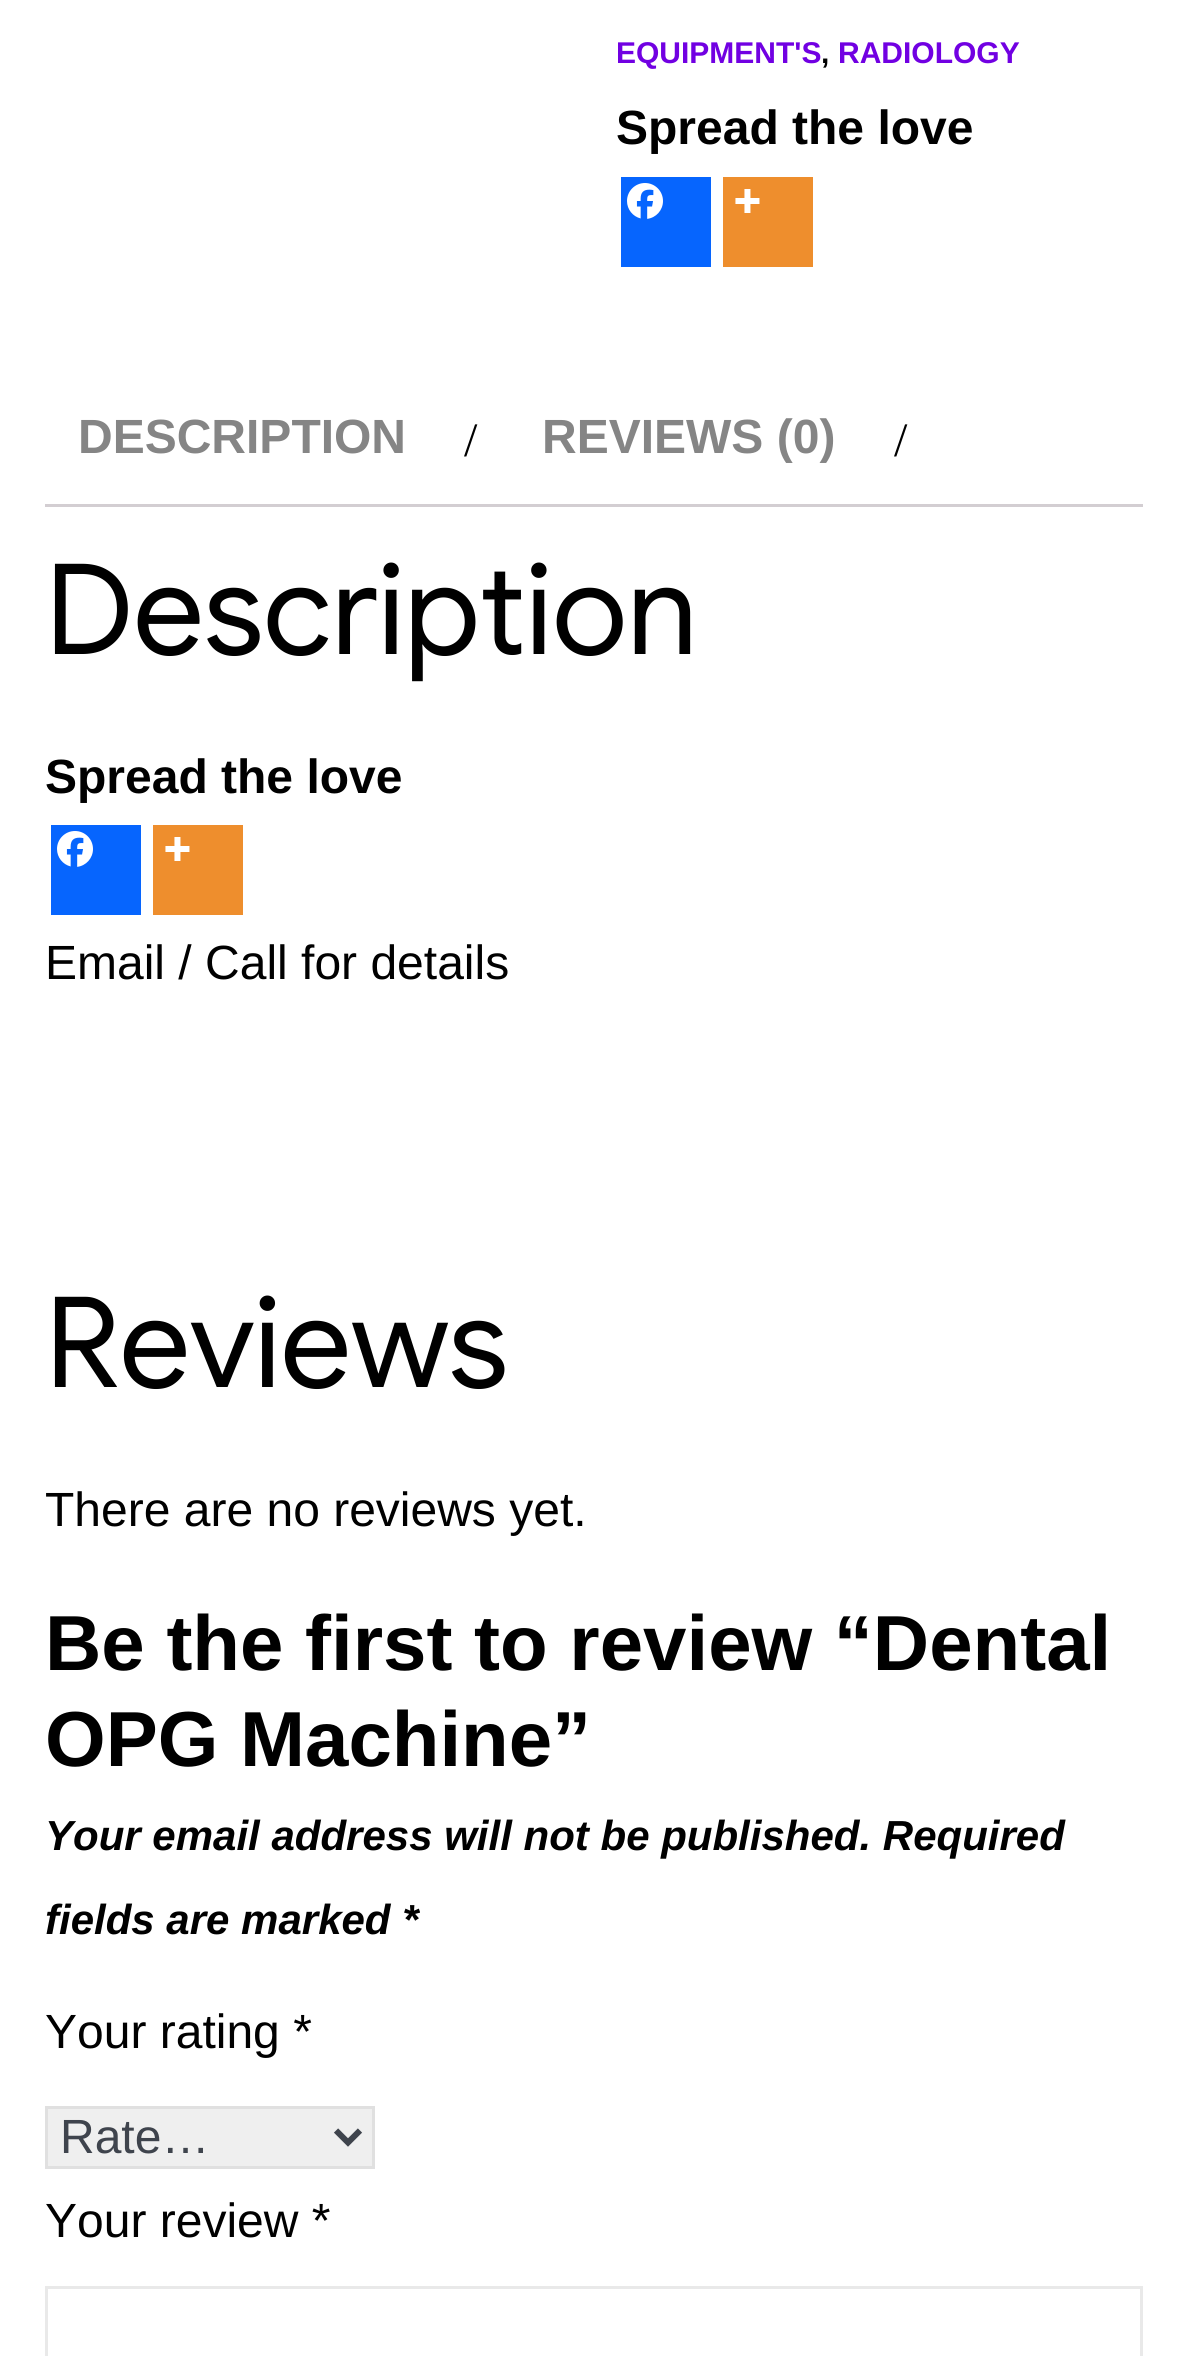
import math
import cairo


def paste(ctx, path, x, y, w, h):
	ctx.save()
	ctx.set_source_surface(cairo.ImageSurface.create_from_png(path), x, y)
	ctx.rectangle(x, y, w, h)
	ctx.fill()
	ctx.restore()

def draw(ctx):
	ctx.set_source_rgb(1, 1, 1)
	ctx.paint()
	ctx.select_font_face('Liberation Sans', cairo.FONT_SLANT_NORMAL, cairo.FONT_WEIGHT_BOLD)
	ctx.set_font_size(30)
	ctx.set_source_rgb(0.443, 0, 0.886)
	ctx.move_to(616, 63)
	ctx.show_text('EQUIPMENT\'S')
	ctx.set_source_rgb(0, 0, 0)
	ctx.move_to(821, 63)
	ctx.show_text(',')
	ctx.set_source_rgb(0.443, 0, 0.886)
	ctx.move_to(838, 63)
	ctx.show_text('RADIOLOGY')
	ctx.set_font_size(48)
	ctx.set_source_rgb(0, 0, 0)
	ctx.move_to(616, 144)
	ctx.show_text('Spread the love')
	ctx.set_source_rgb(0.027, 0.396, 0.996)
	ctx.rectangle(621, 177, 90, 90)
	ctx.fill()
	paste(ctx, 'media/1.png', 627, 183, 36, 36)
	ctx.set_source_rgb(0.933, 0.557, 0.176)
	ctx.rectangle(723, 177, 90, 90)
	ctx.fill()
	paste(ctx, 'media/2.png', 735, 189, 25, 24)
	ctx.set_source_rgb(0.522, 0.522, 0.522)
	ctx.move_to(78, 453)
	ctx.show_text('DESCRIPTION')
	ctx.select_font_face('Liberation Serif')
	ctx.set_source_rgb(0, 0, 0)
	ctx.move_to(464, 456)
	ctx.show_text('/')
	ctx.select_font_face('Liberation Sans', cairo.FONT_SLANT_NORMAL, cairo.FONT_WEIGHT_BOLD)
	ctx.set_source_rgb(0.522, 0.522, 0.522)
	ctx.move_to(542, 453)
	ctx.show_text('REVIEWS (0)')
	ctx.select_font_face('Liberation Serif')
	ctx.set_source_rgb(0, 0, 0)
	ctx.move_to(894, 456)
	ctx.show_text('/')
	ctx.set_source_rgb(0.827, 0.808, 0.824)
	ctx.rectangle(45, 504, 1098, 3)
	ctx.fill()
	ctx.select_font_face('Google Sans')
	ctx.set_font_size(126)
	ctx.set_source_rgb(0, 0, 0)
	ctx.move_to(45, 654)
	ctx.show_text('Description')
	ctx.select_font_face('Liberation Sans', cairo.FONT_SLANT_NORMAL, cairo.FONT_WEIGHT_BOLD)
	ctx.set_font_size(48)
	ctx.move_to(45, 793)
	ctx.show_text('Spread the love')
	ctx.set_source_rgb(0.027, 0.396, 0.996)
	ctx.rectangle(51, 825, 90, 90)
	ctx.fill()
	paste(ctx, 'media/1.png', 57, 831, 36, 36)
	ctx.set_source_rgb(0.933, 0.557, 0.176)
	ctx.rectangle(153, 825, 90, 90)
	ctx.fill()
	paste(ctx, 'media/2.png', 165, 837, 25, 24)
	ctx.select_font_face('Liberation Sans')
	ctx.set_source_rgb(0, 0, 0)
	ctx.move_to(45, 979)
	ctx.show_text('Email / Call for details')
	ctx.select_font_face('Google Sans')
	ctx.set_font_size(126)
	ctx.move_to(45, 1387)
	ctx.show_text('Reviews')
	ctx.select_font_face('Liberation Sans')
	ctx.set_font_size(48)
	ctx.move_to(45, 1526)
	ctx.show_text('There are no reviews yet.')
	ctx.select_font_face('Liberation Sans', cairo.FONT_SLANT_NORMAL, cairo.FONT_WEIGHT_BOLD)
	ctx.set_font_size(78)
	ctx.move_to(45, 1670)
	ctx.show_text('Be the first to review “Dental')
	ctx.move_to(45, 1766)
	ctx.show_text('OPG Machine”')
	ctx.select_font_face('Liberation Sans', cairo.FONT_SLANT_ITALIC, cairo.FONT_WEIGHT_BOLD)
	ctx.set_font_size(42)
	ctx.move_to(45, 1850)
	ctx.show_text('Your email address will not be published. Required')
	ctx.move_to(45, 1934)
	ctx.show_text('fields are marked *')
	ctx.select_font_face('Liberation Sans')
	ctx.set_font_size(48)
	ctx.move_to(45, 2048)
	ctx.show_text('Your rating *')
	ctx.set_source_rgb(0.937, 0.937, 0.937)
	ctx.rectangle(46.5, 2107.5, 327, 60)
	ctx.fill_preserve()
	ctx.set_source_rgb(0.878, 0.878, 0.878)
	ctx.set_line_width(3)
	ctx.stroke()
	ctx.new_path()
	ctx.move_to(336, 2130.5)
	ctx.line_to(348, 2142.5)
	ctx.line_to(360, 2130.5)
	ctx.set_source_rgb(0.247, 0.267, 0.302)
	ctx.set_line_width(6)
	ctx.stroke()
	ctx.move_to(60, 2153)
	ctx.show_text('Rate…')
	ctx.set_source_rgb(0, 0, 0)
	ctx.move_to(45, 2237)
	ctx.show_text('Your review *')
	ctx.rectangle(46.5, 2287.5, 1095, 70)
	ctx.set_source_rgb(0.914, 0.914, 0.914)
	ctx.set_line_width(3)
	ctx.stroke()


surface = cairo.ImageSurface(cairo.FORMAT_RGB24, 1187, 2356)
ctx = cairo.Context(surface)
options = cairo.FontOptions()
options.set_hint_metrics(cairo.HINT_METRICS_OFF)
options.set_hint_style(cairo.HINT_STYLE_NONE)
ctx.set_font_options(options)
ctx.set_miter_limit(4)
draw(ctx)
surface.write_to_png('image.png')
